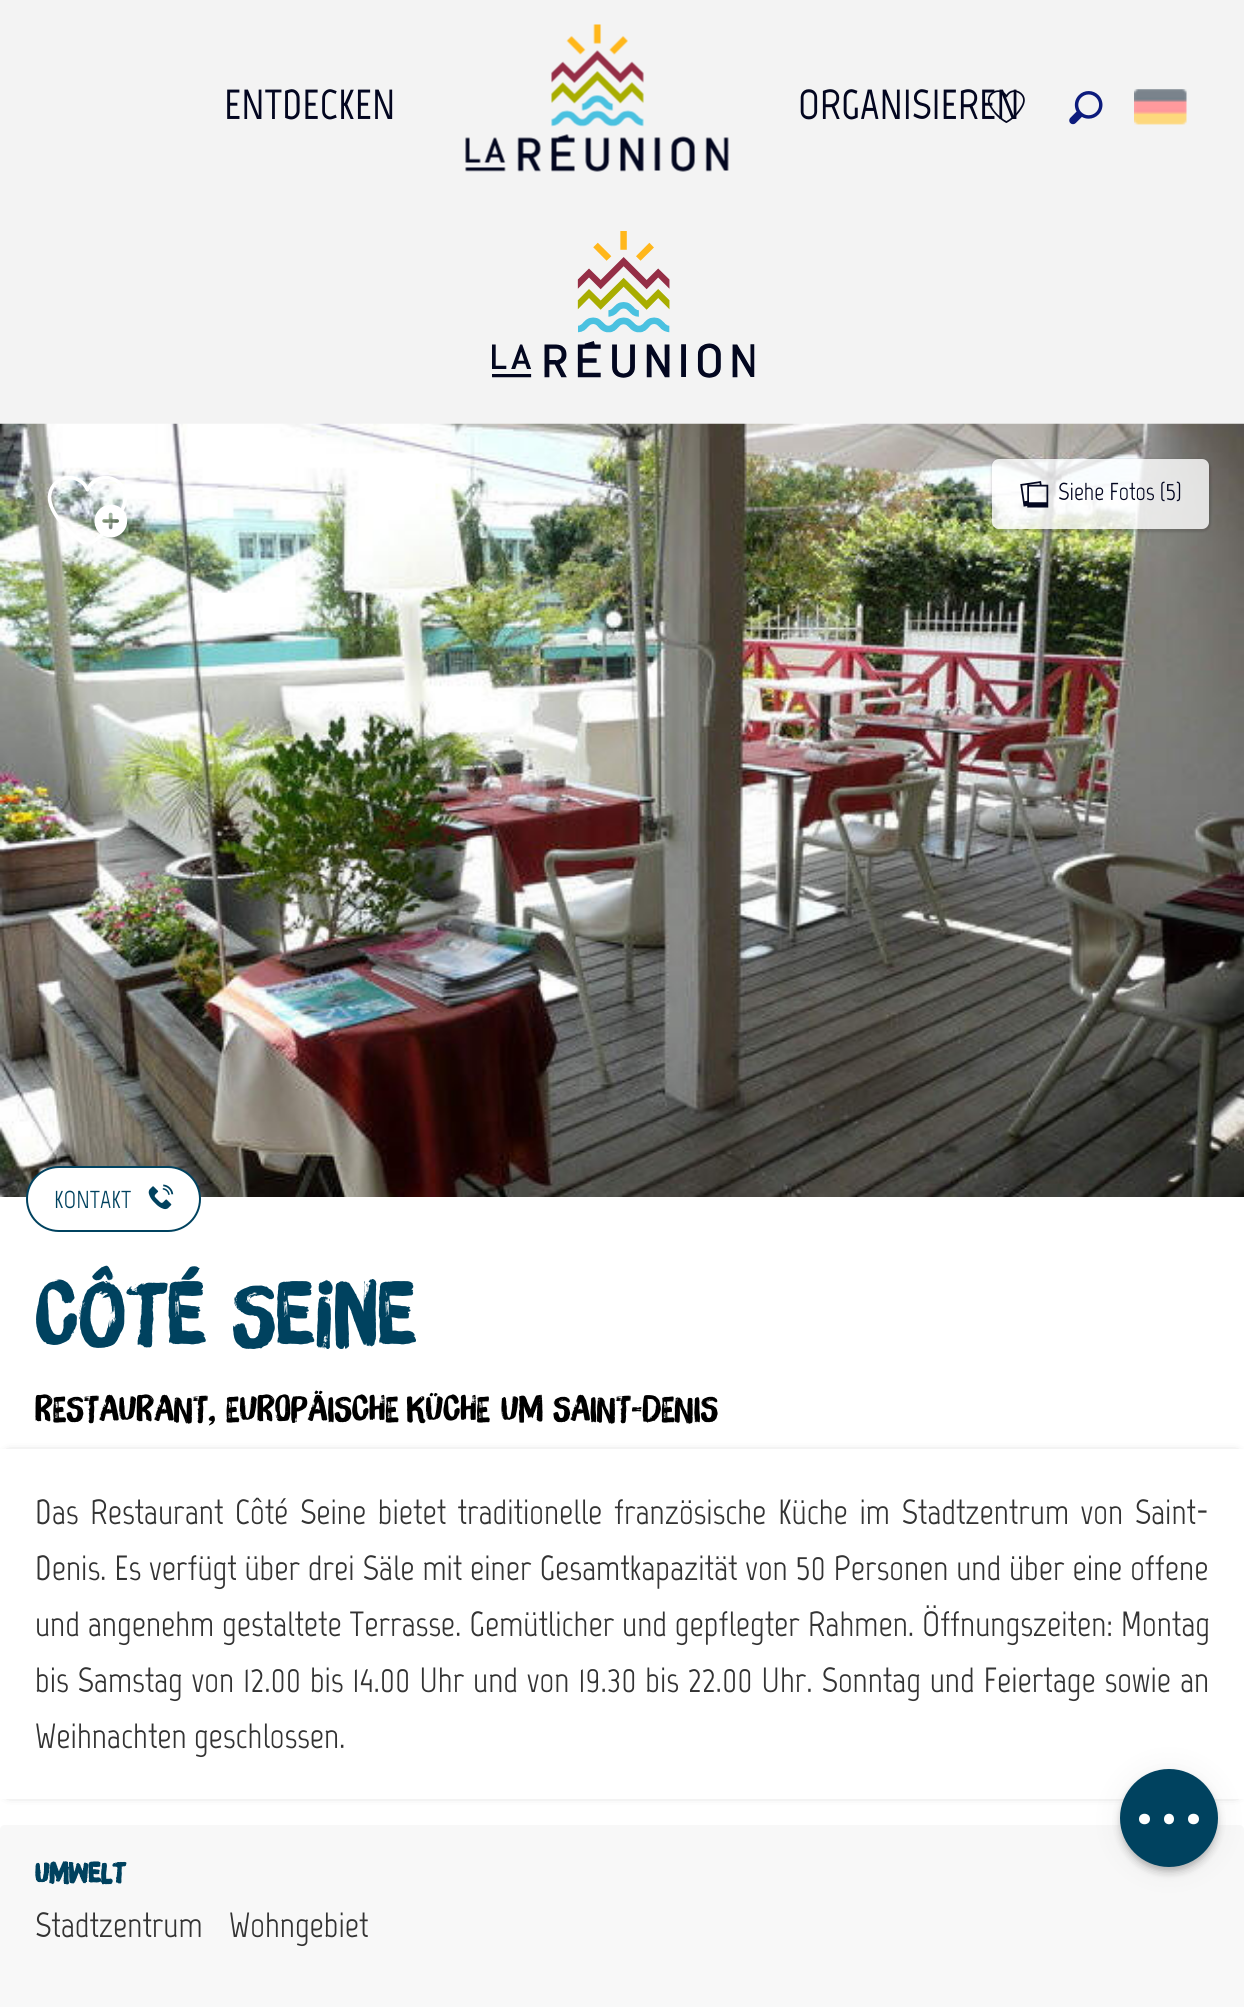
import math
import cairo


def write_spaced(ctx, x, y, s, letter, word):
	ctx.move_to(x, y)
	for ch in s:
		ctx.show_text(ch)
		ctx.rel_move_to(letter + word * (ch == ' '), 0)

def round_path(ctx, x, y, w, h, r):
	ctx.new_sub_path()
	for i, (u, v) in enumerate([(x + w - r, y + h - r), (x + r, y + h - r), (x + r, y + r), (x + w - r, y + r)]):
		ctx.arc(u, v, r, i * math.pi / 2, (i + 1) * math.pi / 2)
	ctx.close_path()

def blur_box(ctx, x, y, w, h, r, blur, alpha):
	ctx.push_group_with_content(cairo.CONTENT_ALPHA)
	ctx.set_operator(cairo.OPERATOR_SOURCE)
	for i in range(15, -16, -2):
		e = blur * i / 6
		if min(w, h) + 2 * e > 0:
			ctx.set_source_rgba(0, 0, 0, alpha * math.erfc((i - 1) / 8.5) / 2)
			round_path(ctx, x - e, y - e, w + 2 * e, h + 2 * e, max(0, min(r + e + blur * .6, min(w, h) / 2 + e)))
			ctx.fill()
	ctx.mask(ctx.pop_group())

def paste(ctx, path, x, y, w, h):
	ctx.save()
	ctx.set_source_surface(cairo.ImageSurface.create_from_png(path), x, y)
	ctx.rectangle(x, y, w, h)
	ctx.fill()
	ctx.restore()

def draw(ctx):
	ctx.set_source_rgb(0.953, 0.953, 0.953)
	ctx.paint()
	ctx.select_font_face('Marvel', cairo.FONT_SLANT_NORMAL, cairo.FONT_WEIGHT_BOLD)
	ctx.set_font_size(42)
	ctx.set_source_rgb(0.012, 0.027, 0.125)
	ctx.move_to(224, 119)
	ctx.show_text('ENTDECKEN')
	paste(ctx, 'media/1.png', 465, 24, 264, 148)
	ctx.move_to(798, 119)
	ctx.show_text('ORGANISIEREN')
	paste(ctx, 'media/2.png', 987, 90, 38, 33)
	paste(ctx, 'media/3.png', 1069, 91, 34, 34)
	paste(ctx, 'media/4.png', 1134, 89, 53, 36)
	paste(ctx, 'media/5.png', 492, 231, 263, 147)
	ctx.set_source_rgb(1, 1, 1)
	ctx.rectangle(0, 1197, 1244, 633)
	ctx.fill()
	paste(ctx, 'media/6.png', 0, 423, 1244, 774)
	paste(ctx, 'media/7.png', 47, 476, 81, 68)
	ctx.save()
	ctx.set_fill_rule(cairo.FILL_RULE_EVEN_ODD)
	ctx.new_path()
	ctx.move_to(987, 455)
	ctx.line_to(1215, 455)
	ctx.line_to(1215, 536)
	ctx.line_to(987, 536)
	ctx.close_path()
	ctx.move_to(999, 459)
	ctx.line_to(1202, 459)
	ctx.curve_to(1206, 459, 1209, 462, 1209, 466)
	ctx.line_to(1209, 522)
	ctx.curve_to(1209, 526, 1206, 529, 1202, 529)
	ctx.line_to(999, 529)
	ctx.curve_to(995, 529, 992, 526, 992, 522)
	ctx.line_to(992, 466)
	ctx.curve_to(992, 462, 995, 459, 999, 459)
	ctx.close_path()
	ctx.clip()
	ctx.set_source_rgb(0, 0, 0)
	blur_box(ctx, 991, 459, 220, 73, 9, 1, 0.14)
	ctx.restore()
	ctx.set_source_rgba(1, 1, 1, 0.8)
	round_path(ctx, 992, 459, 217, 70, 7)
	ctx.fill()
	paste(ctx, 'media/8.png', 1020, 481, 29, 27)
	ctx.select_font_face('Marvel')
	ctx.set_font_size(24.5)
	ctx.set_source_rgb(0.012, 0.027, 0.125)
	ctx.move_to(1058, 500)
	ctx.show_text('Siehe Fotos (5)')
	ctx.set_source_rgb(1, 1, 1)
	round_path(ctx, 27, 1167, 173, 64, 32)
	ctx.fill_preserve()
	ctx.set_source_rgb(0, 0.259, 0.373)
	ctx.stroke()
	ctx.move_to(54, 1208)
	ctx.show_text('KONTAKT')
	paste(ctx, 'media/9.png', 148, 1184, 26, 26)
	ctx.select_font_face('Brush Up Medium')
	ctx.set_font_size(87.5)
	write_spaced(ctx, 35, 1346, 'Côté Seine', 0, 1)
	ctx.set_font_size(35)
	ctx.set_source_rgb(0, 0, 0)
	ctx.move_to(35, 1421)
	ctx.show_text('RESTAURANT,')
	write_spaced(ctx, 226, 1421, 'EUROPÄISCHE KÜCHE', 0, -2)
	ctx.move_to(501, 1421)
	ctx.show_text('UM SAINT-DENIS')
	ctx.save()
	ctx.set_fill_rule(cairo.FILL_RULE_EVEN_ODD)
	ctx.new_path()
	ctx.move_to(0, 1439)
	ctx.line_to(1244, 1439)
	ctx.line_to(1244, 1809)
	ctx.line_to(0, 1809)
	ctx.close_path()
	ctx.move_to(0, 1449)
	ctx.line_to(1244, 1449)
	ctx.line_to(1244, 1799)
	ctx.line_to(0, 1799)
	ctx.close_path()
	ctx.clip()
	ctx.set_source_rgb(0, 0, 0)
	blur_box(ctx, 9, 1458, 1227, 332, 0, 6, 1)
	ctx.restore()
	ctx.select_font_face('Marvel')
	ctx.set_source_rgb(0.2, 0.2, 0.2)
	write_spaced(ctx, 35, 1524, 'Das Restaurant Côté Seine bietet traditionelle französische Küche im Stadtzentrum von Saint-', 0, 4.25)
	write_spaced(ctx, 35, 1580, 'Denis. Es verfügt über drei Säle mit einer Gesamtkapazität von 50 Personen und über eine offene', 0, 0.5)
	write_spaced(ctx, 35, 1636, 'und angenehm gestaltete Terrasse. Gemütlicher und gepflegter Rahmen. Öffnungszeiten: Montag', 0, 0.5)
	write_spaced(ctx, 35, 1692, 'bis Samstag von 12.00 bis 14.00 Uhr und von 19.30 bis 22.00 Uhr. Sonntag und Feiertage sowie an', 0, 1.5)
	ctx.move_to(35, 1748)
	ctx.show_text('Weihnachten geschlossen.')
	ctx.set_source_rgb(0.969, 0.969, 0.969)
	ctx.new_path()
	ctx.move_to(5, 1825)
	ctx.line_to(1239, 1825)
	ctx.curve_to(1242, 1825, 1244, 1827, 1244, 1830)
	ctx.line_to(1244, 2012)
	ctx.line_to(0, 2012)
	ctx.line_to(0, 1830)
	ctx.curve_to(0, 1827, 2, 1825, 5, 1825)
	ctx.close_path()
	ctx.fill()
	ctx.select_font_face('Brush Up', cairo.FONT_SLANT_NORMAL, cairo.FONT_WEIGHT_BOLD)
	ctx.set_font_size(28)
	ctx.set_source_rgb(0, 0.259, 0.373)
	ctx.move_to(35, 1883)
	ctx.show_text('Umwelt')
	ctx.select_font_face('Marvel')
	ctx.set_font_size(35)
	ctx.set_source_rgb(0.2, 0.2, 0.2)
	ctx.move_to(35, 1937)
	ctx.show_text('Stadtzentrum')
	ctx.move_to(229, 1937)
	ctx.show_text('Wohngebiet')
	ctx.set_source_rgb(0, 0, 0)
	blur_box(ctx, 1122, 1776, 94, 95, 47, 4.5, 0.3)
	blur_box(ctx, 1120, 1771, 98, 98, 49, 16, 0.06)
	ctx.set_source_rgb(0, 0.259, 0.373)
	ctx.arc(1169, 1818, 48, 0, 2 * math.pi)
	ctx.fill_preserve()
	ctx.stroke()
	ctx.set_source_rgb(1, 1, 1)
	ctx.new_path()
	ctx.move_to(1150, 1819)
	ctx.curve_to(1150, 1826, 1139, 1826, 1139, 1819)
	ctx.curve_to(1139, 1812, 1150, 1812, 1150, 1819)
	ctx.close_path()
	ctx.move_to(1174, 1819)
	ctx.curve_to(1174, 1826, 1164, 1826, 1164, 1819)
	ctx.curve_to(1164, 1812, 1174, 1812, 1174, 1819)
	ctx.close_path()
	ctx.move_to(1199, 1819)
	ctx.curve_to(1199, 1826, 1188, 1826, 1188, 1819)
	ctx.curve_to(1188, 1812, 1199, 1812, 1199, 1819)
	ctx.close_path()
	ctx.fill()


surface = cairo.ImageSurface(cairo.FORMAT_RGB24, 1244, 2007)
ctx = cairo.Context(surface)
options = cairo.FontOptions()
options.set_hint_metrics(cairo.HINT_METRICS_OFF)
options.set_hint_style(cairo.HINT_STYLE_NONE)
ctx.set_font_options(options)
ctx.set_miter_limit(4)
draw(ctx)
surface.write_to_png('image.png')
